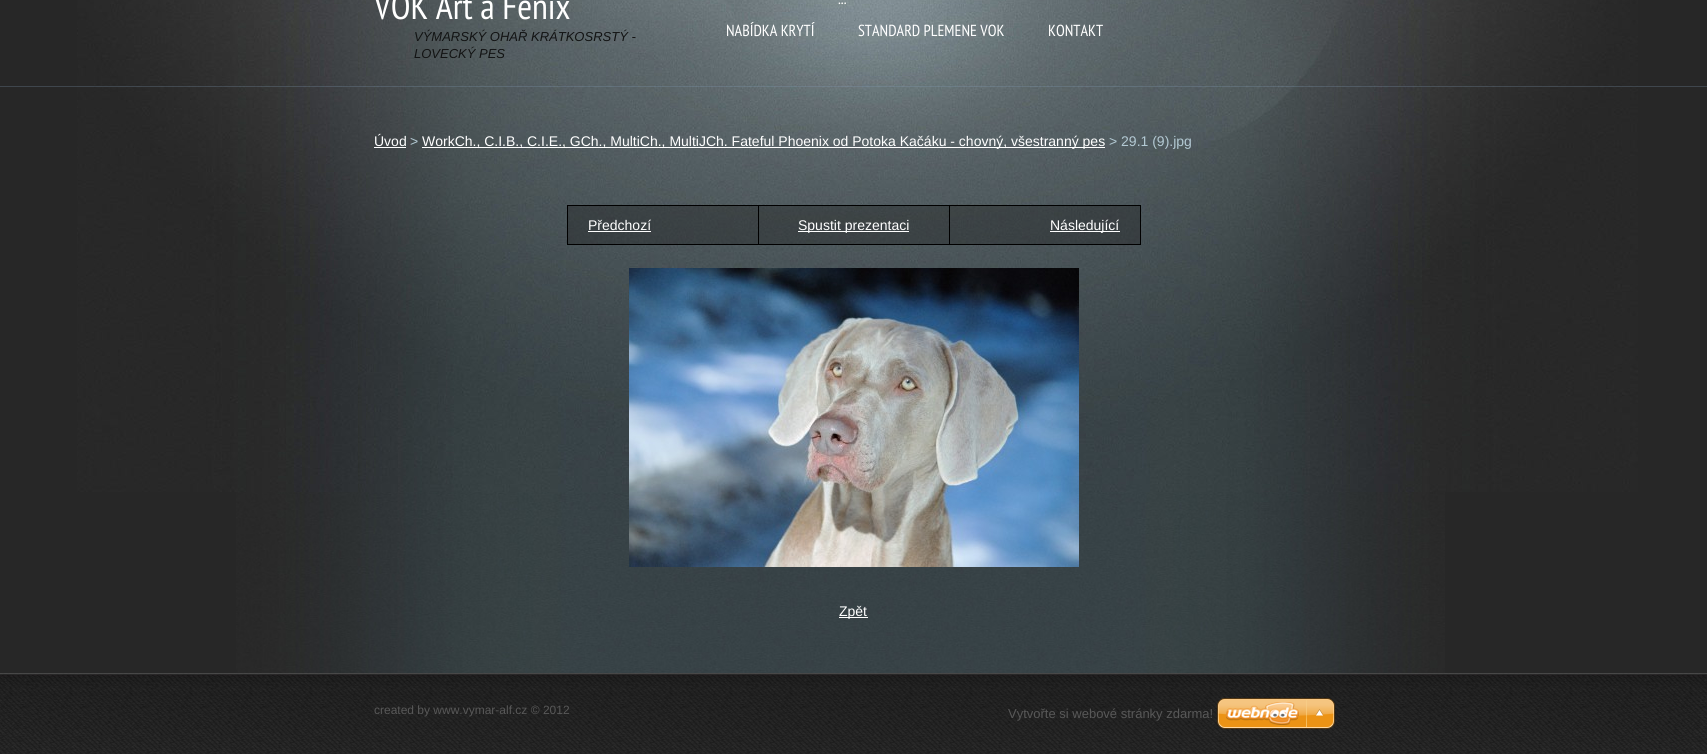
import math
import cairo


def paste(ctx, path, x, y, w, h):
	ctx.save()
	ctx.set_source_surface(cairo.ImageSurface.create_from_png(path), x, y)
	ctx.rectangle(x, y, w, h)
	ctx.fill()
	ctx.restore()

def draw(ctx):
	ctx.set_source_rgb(0.153, 0.153, 0.153)
	ctx.paint()
	paste(ctx, 'media/1.png', 236, 492, 1209, 181)
	paste(ctx, 'media/2.png', 77, 0, 1561, 492)
	ctx.set_source_rgba(0.514, 0.62, 0.725, 0.26)
	ctx.rectangle(0, 86, 1707, 1)
	ctx.fill()
	ctx.select_font_face('PT Sans Narrow')
	ctx.set_font_size(36)
	ctx.set_source_rgb(1, 1, 1)
	ctx.move_to(374, 19)
	ctx.show_text('VOK Art a Fenix')
	ctx.select_font_face('Liberation Sans', cairo.FONT_SLANT_ITALIC)
	ctx.set_font_size(13)
	ctx.set_source_rgb(0.071, 0.075, 0.075)
	ctx.move_to(414, 41)
	ctx.show_text('VÝMARSKÝ OHAŘ KRÁTKOSRSTÝ -')
	ctx.move_to(414, 58)
	ctx.show_text('LOVECKÝ PES')
	ctx.select_font_face('PT Sans Narrow')
	ctx.set_font_size(16)
	ctx.set_source_rgb(1, 1, 1)
	for x, y, s in [
		(838, 4, '...'),
		(726, 36, 'NABÍDKA KRYTÍ'),
		(858, 36, 'STANDARD PLEMENE VOK'),
		(1048, 36, 'KONTAKT'),
	]:
		ctx.move_to(x, y)
		ctx.show_text(s)
	ctx.select_font_face('Liberation Sans')
	ctx.set_font_size(14)
	ctx.move_to(374, 146)
	ctx.show_text('Úvod')
	ctx.rectangle(374, 147, 32, 1)
	ctx.fill()
	ctx.set_source_rgb(0.702, 0.788, 0.827)
	ctx.move_to(410, 146)
	ctx.show_text('>')
	ctx.set_source_rgb(1, 1, 1)
	ctx.rectangle(422, 147, 683, 1)
	ctx.fill()
	ctx.move_to(422, 146)
	ctx.show_text('WorkCh., C.I.B., C.I.E., GCh., MultiCh., MultiJCh. Fateful Phoenix od Potoka Kačáku - chovný, všestranný pes')
	ctx.set_source_rgb(0.702, 0.788, 0.827)
	ctx.move_to(1109, 146)
	ctx.show_text('> 29.1 (9).jpg')
	ctx.set_source_rgb(0, 0, 0)
	ctx.rectangle(567, 205, 574, 1)
	ctx.rectangle(567, 205, 1, 40)
	ctx.fill()
	ctx.set_source_rgba(0.11, 0.11, 0.11, 0.36)
	ctx.rectangle(568, 206, 190, 38)
	ctx.fill()
	ctx.set_source_rgb(0, 0, 0)
	ctx.rectangle(1140, 205, 1, 40)
	ctx.rectangle(949, 244, 192, 1)
	ctx.rectangle(949, 205, 1, 40)
	ctx.rectangle(758, 244, 192, 1)
	ctx.rectangle(758, 205, 1, 40)
	ctx.rectangle(567, 244, 192, 1)
	ctx.fill()
	ctx.set_source_rgb(1, 1, 1)
	ctx.move_to(588, 230)
	ctx.show_text('Předchozí')
	ctx.rectangle(588, 231, 63, 1)
	ctx.fill()
	ctx.set_source_rgba(0.11, 0.11, 0.11, 0.36)
	ctx.rectangle(759, 206, 190, 38)
	ctx.fill()
	ctx.set_source_rgb(1, 1, 1)
	ctx.rectangle(798, 231, 111, 1)
	ctx.fill()
	ctx.move_to(798, 230)
	ctx.show_text('Spustit prezentaci')
	ctx.set_source_rgba(0.11, 0.11, 0.11, 0.36)
	ctx.rectangle(950, 206, 190, 38)
	ctx.fill()
	ctx.set_source_rgb(1, 1, 1)
	ctx.rectangle(1050, 231, 70, 1)
	ctx.fill()
	ctx.move_to(1050, 230)
	ctx.show_text('Následující')
	paste(ctx, 'media/3.png', 629, 268, 450, 299)
	ctx.rectangle(839, 617, 29, 1)
	ctx.fill()
	ctx.move_to(839, 616)
	ctx.show_text('Zpět')
	paste(ctx, 'media/4.png', 0, 673, 1707, 81)
	ctx.set_font_size(12)
	ctx.set_source_rgb(0.345, 0.345, 0.345)
	ctx.move_to(374, 714)
	ctx.show_text('created by www.vymar-alf.cz © 2012')
	ctx.set_font_size(13)
	ctx.move_to(1008, 718)
	ctx.show_text('Vytvořte si webové stránky zdarma!')
	paste(ctx, 'media/5.png', 1217, 698, 118, 31)


surface = cairo.ImageSurface(cairo.FORMAT_RGB24, 1707, 754)
ctx = cairo.Context(surface)
options = cairo.FontOptions()
options.set_hint_metrics(cairo.HINT_METRICS_OFF)
options.set_hint_style(cairo.HINT_STYLE_NONE)
ctx.set_font_options(options)
ctx.set_miter_limit(4)
draw(ctx)
surface.write_to_png('image.png')
